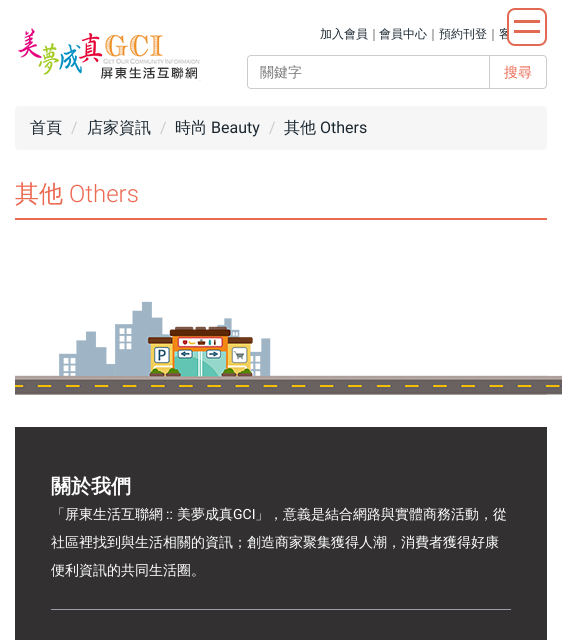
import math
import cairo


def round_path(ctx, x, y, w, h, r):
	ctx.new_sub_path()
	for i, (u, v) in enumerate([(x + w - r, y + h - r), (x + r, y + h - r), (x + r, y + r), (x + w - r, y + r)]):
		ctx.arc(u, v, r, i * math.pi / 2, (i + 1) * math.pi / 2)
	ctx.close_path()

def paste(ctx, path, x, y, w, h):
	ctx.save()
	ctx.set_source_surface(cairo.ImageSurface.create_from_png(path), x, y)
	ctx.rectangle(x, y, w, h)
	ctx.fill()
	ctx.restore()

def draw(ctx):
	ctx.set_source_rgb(1, 1, 1)
	ctx.paint()
	ctx.select_font_face('WenQuanYi Zen Hei Medium')
	ctx.set_font_size(12)
	ctx.set_source_rgb(0.102, 0.153, 0.192)
	ctx.move_to(499, 38)
	ctx.show_text('客')
	ctx.set_source_rgb(1, 1, 1)
	round_path(ctx, 508, 9, 38, 36, 7)
	ctx.fill_preserve()
	ctx.set_source_rgb(0.886, 0.412, 0.322)
	ctx.stroke()
	ctx.rectangle(514, 20, 26, 3)
	ctx.fill()
	ctx.rectangle(514, 30, 26, 3)
	ctx.fill()
	paste(ctx, 'media/1.png', 18, 28, 183, 53)
	ctx.set_source_rgb(0.102, 0.153, 0.192)
	ctx.move_to(320, 38)
	ctx.show_text('加入會員')
	ctx.set_source_rgb(0.267, 0.267, 0.267)
	ctx.move_to(368, 38)
	ctx.show_text('｜')
	ctx.set_source_rgb(0.102, 0.153, 0.192)
	ctx.move_to(379, 38)
	ctx.show_text('會員中心')
	ctx.set_source_rgb(0.267, 0.267, 0.267)
	ctx.move_to(427, 38)
	ctx.show_text('｜')
	ctx.set_source_rgb(0.102, 0.153, 0.192)
	ctx.move_to(439, 38)
	ctx.show_text('預約刊登')
	ctx.set_source_rgb(0.267, 0.267, 0.267)
	ctx.move_to(487, 38)
	ctx.show_text('｜')
	ctx.new_path()
	ctx.move_to(489.5, 55.5)
	ctx.line_to(543, 55.5)
	ctx.curve_to(545, 55.5, 546.5, 57, 546.5, 59)
	ctx.line_to(546.5, 85)
	ctx.curve_to(546.5, 87, 545, 88.5, 543, 88.5)
	ctx.line_to(489.5, 88.5)
	ctx.close_path()
	ctx.set_source_rgb(0.8, 0.8, 0.8)
	ctx.set_line_width(1)
	ctx.stroke()
	ctx.set_source_rgb(1, 1, 1)
	ctx.new_path()
	ctx.move_to(251, 55.5)
	ctx.line_to(489.5, 55.5)
	ctx.line_to(489.5, 88.5)
	ctx.line_to(251, 88.5)
	ctx.curve_to(249, 88.5, 247.5, 87, 247.5, 85)
	ctx.line_to(247.5, 59)
	ctx.curve_to(247.5, 57, 249, 55.5, 251, 55.5)
	ctx.close_path()
	ctx.fill_preserve()
	ctx.set_source_rgb(0.8, 0.8, 0.8)
	ctx.stroke()
	ctx.set_font_size(14)
	ctx.set_source_rgb(0.467, 0.467, 0.467)
	ctx.move_to(260, 77)
	ctx.show_text('關鍵字')
	ctx.set_source_rgb(0.925, 0.412, 0.322)
	ctx.move_to(504, 77)
	ctx.show_text('搜尋')
	ctx.set_source_rgb(0.961, 0.961, 0.961)
	round_path(ctx, 15, 106, 532, 44, 4)
	ctx.fill()
	ctx.set_font_size(16)
	ctx.set_source_rgb(0.102, 0.153, 0.192)
	ctx.move_to(30, 133)
	ctx.show_text('首頁')
	ctx.select_font_face('Roboto')
	ctx.set_source_rgb(0.8, 0.8, 0.8)
	ctx.move_to(71, 133)
	ctx.show_text('/')
	ctx.select_font_face('WenQuanYi Zen Hei Medium')
	ctx.set_source_rgb(0.102, 0.153, 0.192)
	ctx.move_to(87, 133)
	ctx.show_text('店家資訊')
	ctx.select_font_face('Roboto')
	ctx.set_source_rgb(0.8, 0.8, 0.8)
	ctx.move_to(160, 133)
	ctx.show_text('/')
	ctx.select_font_face('WenQuanYi Zen Hei Medium')
	ctx.set_source_rgb(0.102, 0.153, 0.192)
	ctx.move_to(175, 133)
	ctx.show_text('時尚')
	ctx.select_font_face('Roboto')
	ctx.move_to(211, 133)
	ctx.show_text('Beauty')
	ctx.set_source_rgb(0.8, 0.8, 0.8)
	ctx.move_to(269, 133)
	ctx.show_text('/')
	ctx.select_font_face('WenQuanYi Zen Hei Medium')
	ctx.set_source_rgb(0.102, 0.153, 0.192)
	ctx.move_to(284, 133)
	ctx.show_text('其他')
	ctx.select_font_face('Roboto')
	ctx.move_to(320, 133)
	ctx.show_text('Others')
	ctx.set_source_rgb(0.925, 0.412, 0.322)
	ctx.rectangle(15, 218, 532, 2)
	ctx.fill()
	ctx.select_font_face('WenQuanYi Zen Hei Medium')
	ctx.set_font_size(24)
	ctx.move_to(15, 202)
	ctx.show_text('其他')
	ctx.select_font_face('Roboto Light')
	ctx.move_to(69, 202)
	ctx.show_text('Others')
	paste(ctx, 'media/2.png', 15, 375, 532, 20)
	paste(ctx, 'media/3.png', 15, 301, 547, 94)
	ctx.set_source_rgb(0.196, 0.188, 0.192)
	ctx.rectangle(15, 427, 532, 213)
	ctx.fill()
	ctx.set_source_rgb(0.612, 0.608, 0.667)
	ctx.rectangle(51, 609, 460, 1)
	ctx.fill()
	ctx.select_font_face('WenQuanYi Zen Hei', cairo.FONT_SLANT_NORMAL, cairo.FONT_WEIGHT_BOLD)
	ctx.set_font_size(20)
	ctx.set_source_rgb(1, 1, 1)
	ctx.move_to(51, 493)
	ctx.show_text('關於我們')
	ctx.select_font_face('WenQuanYi Zen Hei Medium')
	ctx.set_font_size(14)
	ctx.move_to(51, 519)
	ctx.show_text('「屏東生活互聯網')
	ctx.select_font_face('Roboto')
	ctx.move_to(166, 519)
	ctx.show_text('::')
	ctx.select_font_face('WenQuanYi Zen Hei Medium')
	ctx.move_to(177, 519)
	ctx.show_text('美夢成真')
	ctx.select_font_face('Roboto')
	ctx.move_to(233, 519)
	ctx.show_text('GCI')
	ctx.select_font_face('WenQuanYi Zen Hei Medium')
	for x, y, s in [
		(255, 519, '」，意義是結合網路與實體商務活動，從'),
		(51, 547, '社區裡找到與生活相關的資訊；創造商家聚集獲得人潮，消費者獲得好康'),
		(51, 575, '便利資訊的共同生活圈。'),
	]:
		ctx.move_to(x, y)
		ctx.show_text(s)


surface = cairo.ImageSurface(cairo.FORMAT_RGB24, 562, 640)
ctx = cairo.Context(surface)
options = cairo.FontOptions()
options.set_hint_metrics(cairo.HINT_METRICS_OFF)
options.set_hint_style(cairo.HINT_STYLE_NONE)
ctx.set_font_options(options)
ctx.set_miter_limit(4)
draw(ctx)
surface.write_to_png('image.png')
